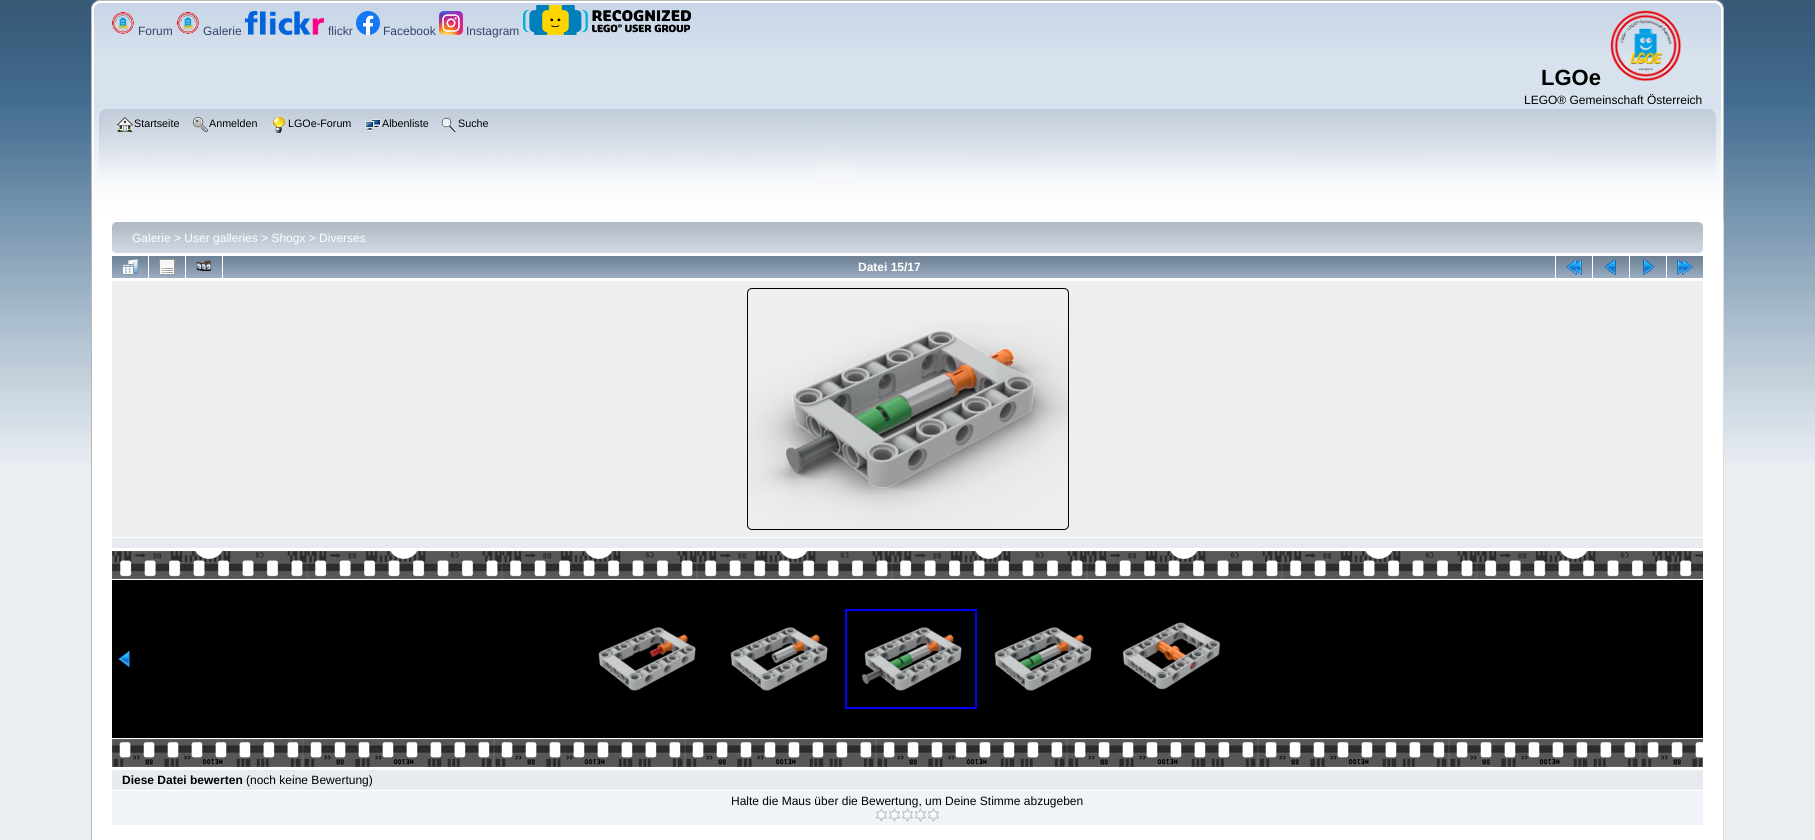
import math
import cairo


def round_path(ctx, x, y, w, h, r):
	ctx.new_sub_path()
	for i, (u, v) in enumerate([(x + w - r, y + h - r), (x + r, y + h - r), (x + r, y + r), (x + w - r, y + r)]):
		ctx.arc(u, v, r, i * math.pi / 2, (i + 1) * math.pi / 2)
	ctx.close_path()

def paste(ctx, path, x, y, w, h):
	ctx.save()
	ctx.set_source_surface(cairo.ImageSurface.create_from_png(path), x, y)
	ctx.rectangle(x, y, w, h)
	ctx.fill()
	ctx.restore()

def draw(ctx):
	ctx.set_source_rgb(0.914, 0.933, 0.949)
	ctx.paint()
	paste(ctx, 'media/1.png', 0, 0, 1815, 462)
	paste(ctx, 'media/2.png', 91, 0, 1625, 109)
	paste(ctx, 'media/3.png', 1716, 0, 8, 109)
	paste(ctx, 'media/4.png', 112, 12, 22, 22)
	ctx.select_font_face('Liberation Sans')
	ctx.set_font_size(12)
	ctx.set_source_rgb(0.2, 0.267, 0.4)
	ctx.move_to(138, 35)
	ctx.show_text('Forum')
	paste(ctx, 'media/5.png', 177, 12, 22, 22)
	ctx.move_to(203, 35)
	ctx.show_text('Galerie')
	paste(ctx, 'media/6.png', 245, 11, 79, 24)
	ctx.move_to(328, 35)
	ctx.show_text('flickr')
	paste(ctx, 'media/7.png', 356, 11, 24, 24)
	ctx.move_to(383, 35)
	ctx.show_text('Facebook')
	paste(ctx, 'media/8.png', 439, 11, 24, 24)
	ctx.move_to(466, 35)
	ctx.show_text('Instagram')
	paste(ctx, 'media/9.png', 523, 5, 168, 30)
	ctx.select_font_face('Liberation Sans', cairo.FONT_SLANT_NORMAL, cairo.FONT_WEIGHT_BOLD)
	ctx.set_font_size(22)
	ctx.set_source_rgb(0, 0, 0)
	ctx.move_to(1541, 85)
	ctx.show_text('LGOe')
	paste(ctx, 'media/10.png', 1610, 10, 72, 72)
	ctx.select_font_face('Liberation Sans')
	ctx.set_font_size(12)
	ctx.move_to(1524, 104)
	ctx.show_text('LEGO® Gemeinschaft Österreich')
	paste(ctx, 'media/11.png', 91, 109, 1619, 110)
	paste(ctx, 'media/12.png', 1710, 109, 14, 110)
	paste(ctx, 'media/13.png', 117, 117, 16, 16)
	ctx.set_font_size(10.75)
	ctx.move_to(134, 127)
	ctx.show_text('Startseite')
	paste(ctx, 'media/14.png', 193, 117, 15, 15)
	ctx.move_to(209, 127)
	ctx.show_text('Anmelden')
	paste(ctx, 'media/15.png', 273, 117, 12, 16)
	ctx.move_to(288, 127)
	ctx.show_text('LGOe-Forum')
	paste(ctx, 'media/16.png', 365, 119, 16, 12)
	ctx.move_to(382, 127)
	ctx.show_text('Albenliste')
	paste(ctx, 'media/17.png', 441, 117, 16, 15)
	ctx.move_to(458, 127)
	ctx.show_text('Suche')
	ctx.set_source_rgb(1, 1, 1)
	ctx.rectangle(92, 219, 1631, 621)
	ctx.fill()
	ctx.set_source_rgb(0.718, 0.718, 0.718)
	ctx.rectangle(91, 219, 1, 621)
	ctx.fill()
	ctx.set_source_rgb(0.859, 0.859, 0.859)
	ctx.rectangle(1723, 219, 1, 621)
	ctx.fill()
	paste(ctx, 'media/18.png', 112, 222, 1587, 31)
	paste(ctx, 'media/19.png', 1699, 222, 4, 31)
	ctx.set_font_size(12)
	ctx.set_source_rgb(1, 1, 1)
	ctx.move_to(132, 242)
	ctx.show_text('Galerie > User galleries > Shogx > Diverses')
	paste(ctx, 'media/20.png', 112, 256, 36, 22)
	paste(ctx, 'media/21.png', 122, 259, 16, 16)
	paste(ctx, 'media/20.png', 149, 256, 36, 22)
	paste(ctx, 'media/22.png', 159, 259, 16, 16)
	paste(ctx, 'media/20.png', 186, 256, 36, 22)
	paste(ctx, 'media/23.png', 196, 260, 16, 12)
	paste(ctx, 'media/24.png', 223, 256, 1332, 22)
	ctx.select_font_face('Liberation Sans', cairo.FONT_SLANT_NORMAL, cairo.FONT_WEIGHT_BOLD)
	ctx.move_to(858, 271)
	ctx.show_text('Datei 15/17')
	paste(ctx, 'media/20.png', 1556, 256, 36, 22)
	paste(ctx, 'media/25.png', 1566, 259, 16, 16)
	paste(ctx, 'media/20.png', 1593, 256, 36, 22)
	paste(ctx, 'media/26.png', 1604, 259, 12, 16)
	paste(ctx, 'media/20.png', 1630, 256, 36, 22)
	paste(ctx, 'media/27.png', 1643, 259, 12, 16)
	paste(ctx, 'media/20.png', 1667, 256, 36, 22)
	paste(ctx, 'media/28.png', 1677, 259, 16, 16)
	ctx.set_source_rgb(0.937, 0.937, 0.937)
	ctx.rectangle(112, 281, 1591, 256)
	ctx.fill()
	round_path(ctx, 747.5, 288.5, 321, 241, 4.5)
	ctx.set_source_rgb(0, 0, 0)
	ctx.set_line_width(1)
	ctx.stroke()
	paste(ctx, 'media/29.png', 748, 321, 320, 207)
	ctx.set_source_rgb(0.906, 0.918, 0.937)
	ctx.rectangle(112, 538, 1591, 10)
	ctx.fill()
	paste(ctx, 'media/30.png', 112, 551, 1591, 28)
	ctx.set_source_rgb(0, 0, 0)
	ctx.rectangle(112, 580, 1591, 158)
	ctx.fill()
	paste(ctx, 'media/31.png', 118, 651, 12, 16)
	paste(ctx, 'media/32.png', 598, 627, 98, 64)
	paste(ctx, 'media/33.png', 730, 627, 98, 64)
	ctx.rectangle(846, 610, 130, 98)
	ctx.set_source_rgb(0, 0, 1)
	ctx.set_line_width(2)
	ctx.stroke()
	paste(ctx, 'media/34.png', 861, 627, 101, 64)
	paste(ctx, 'media/35.png', 994, 627, 98, 64)
	paste(ctx, 'media/36.png', 1122, 622, 99, 68)
	paste(ctx, 'media/37.png', 112, 739, 1591, 28)
	ctx.set_source_rgb(0.906, 0.918, 0.937)
	ctx.rectangle(112, 770, 1591, 20)
	ctx.fill()
	ctx.set_source_rgb(0, 0, 0)
	ctx.move_to(122, 784)
	ctx.show_text('Diese Datei bewerten')
	ctx.select_font_face('Liberation Sans')
	ctx.move_to(246, 784)
	ctx.show_text('(noch keine Bewertung)')
	ctx.set_source_rgb(0.941, 0.957, 0.969)
	ctx.rectangle(112, 791, 1591, 34)
	ctx.fill()
	ctx.set_source_rgb(0, 0, 0)
	ctx.move_to(731, 805)
	ctx.show_text('Halte die Maus über die Bewertung, um Deine Stimme abzugeben')
	paste(ctx, 'media/38.png', 875, 808, 13, 14)
	paste(ctx, 'media/38.png', 888, 808, 13, 14)
	paste(ctx, 'media/38.png', 901, 808, 13, 14)
	paste(ctx, 'media/38.png', 914, 808, 13, 14)
	paste(ctx, 'media/38.png', 927, 808, 13, 14)


surface = cairo.ImageSurface(cairo.FORMAT_RGB24, 1815, 840)
ctx = cairo.Context(surface)
options = cairo.FontOptions()
options.set_hint_metrics(cairo.HINT_METRICS_OFF)
options.set_hint_style(cairo.HINT_STYLE_NONE)
ctx.set_font_options(options)
ctx.set_miter_limit(4)
draw(ctx)
surface.write_to_png('image.png')
